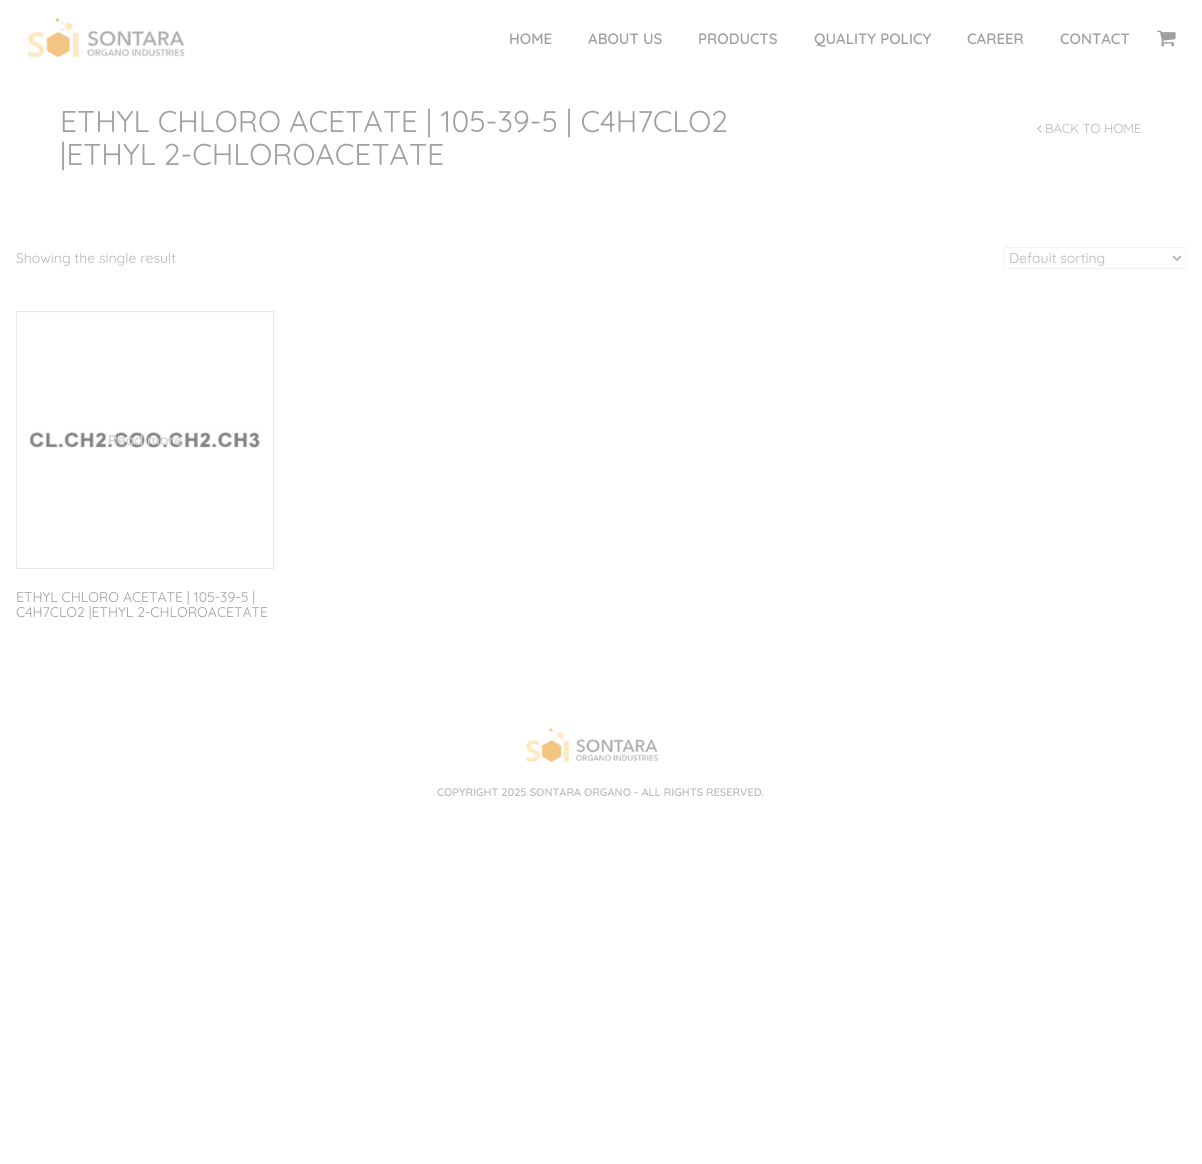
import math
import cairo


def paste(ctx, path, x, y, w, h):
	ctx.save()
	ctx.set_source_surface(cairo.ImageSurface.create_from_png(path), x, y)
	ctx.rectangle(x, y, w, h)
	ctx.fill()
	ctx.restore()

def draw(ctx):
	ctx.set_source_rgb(1, 1, 1)
	ctx.paint()
	paste(ctx, 'media/1.png', 27, 18, 158, 39)
	ctx.select_font_face('Quicksand SemiBold')
	ctx.set_font_size(15)
	ctx.set_source_rgb(0.627, 0.627, 0.627)
	for x, y, s in [
		(509, 44, 'HOME'),
		(588, 44, 'ABOUT US'),
		(698, 44, 'PRODUCTS'),
		(814, 44, 'QUALITY POLICY'),
		(967, 44, 'CAREER'),
		(1060, 44, 'CONTACT'),
	]:
		ctx.move_to(x, y)
		ctx.show_text(s)
	paste(ctx, 'media/2.png', 1157, 30, 19, 17)
	ctx.select_font_face('Quicksand')
	ctx.set_font_size(30)
	ctx.move_to(60, 132)
	ctx.show_text('ETHYL CHLORO ACETATE | 105-39-5 | C4H7CLO2')
	ctx.move_to(60, 165)
	ctx.show_text('|ETHYL 2-CHLOROACETATE')
	paste(ctx, 'media/3.png', 1037, 125, 5, 8)
	ctx.set_font_size(13)
	ctx.set_source_rgb(0.714, 0.714, 0.714)
	ctx.move_to(1045, 133)
	ctx.show_text('BACK TO HOME')
	ctx.set_font_size(14)
	ctx.move_to(16, 263)
	ctx.show_text('Showing the single result')
	ctx.rectangle(1004.5, 247.5, 181, 21)
	ctx.set_source_rgb(0.953, 0.953, 0.953)
	ctx.set_line_width(1)
	ctx.stroke()
	ctx.new_path()
	ctx.move_to(1173, 256)
	ctx.line_to(1177, 260)
	ctx.line_to(1181, 256)
	ctx.set_source_rgb(0.725, 0.725, 0.725)
	ctx.set_line_width(2)
	ctx.stroke()
	ctx.set_source_rgb(0.714, 0.714, 0.714)
	ctx.move_to(1009, 263)
	ctx.show_text('Default sorting')
	paste(ctx, 'media/4.png', 16, 311, 258, 258)
	ctx.select_font_face('Quicksand SemiBold')
	ctx.set_source_rgb(0.82, 0.82, 0.82)
	ctx.move_to(108, 445)
	ctx.show_text('Read more')
	ctx.select_font_face('Quicksand')
	ctx.set_source_rgb(0.627, 0.627, 0.627)
	ctx.move_to(16, 602)
	ctx.show_text('ETHYL CHLORO ACETATE | 105-39-5 |')
	ctx.move_to(16, 617)
	ctx.show_text('C4H7CLO2 |ETHYL 2-CHLOROACETATE')
	paste(ctx, 'media/5.png', 526, 728, 132, 34)
	ctx.select_font_face('Quicksand SemiBold')
	ctx.set_font_size(11)
	ctx.set_source_rgb(0.737, 0.737, 0.737)
	ctx.move_to(437, 796)
	ctx.show_text('COPYRIGHT 2025 SONTARA ORGANO - ALL RIGHTS RESERVED.')


surface = cairo.ImageSurface(cairo.FORMAT_RGB24, 1202, 1164)
ctx = cairo.Context(surface)
options = cairo.FontOptions()
options.set_hint_metrics(cairo.HINT_METRICS_OFF)
options.set_hint_style(cairo.HINT_STYLE_NONE)
ctx.set_font_options(options)
ctx.set_miter_limit(4)
draw(ctx)
surface.write_to_png('image.png')
